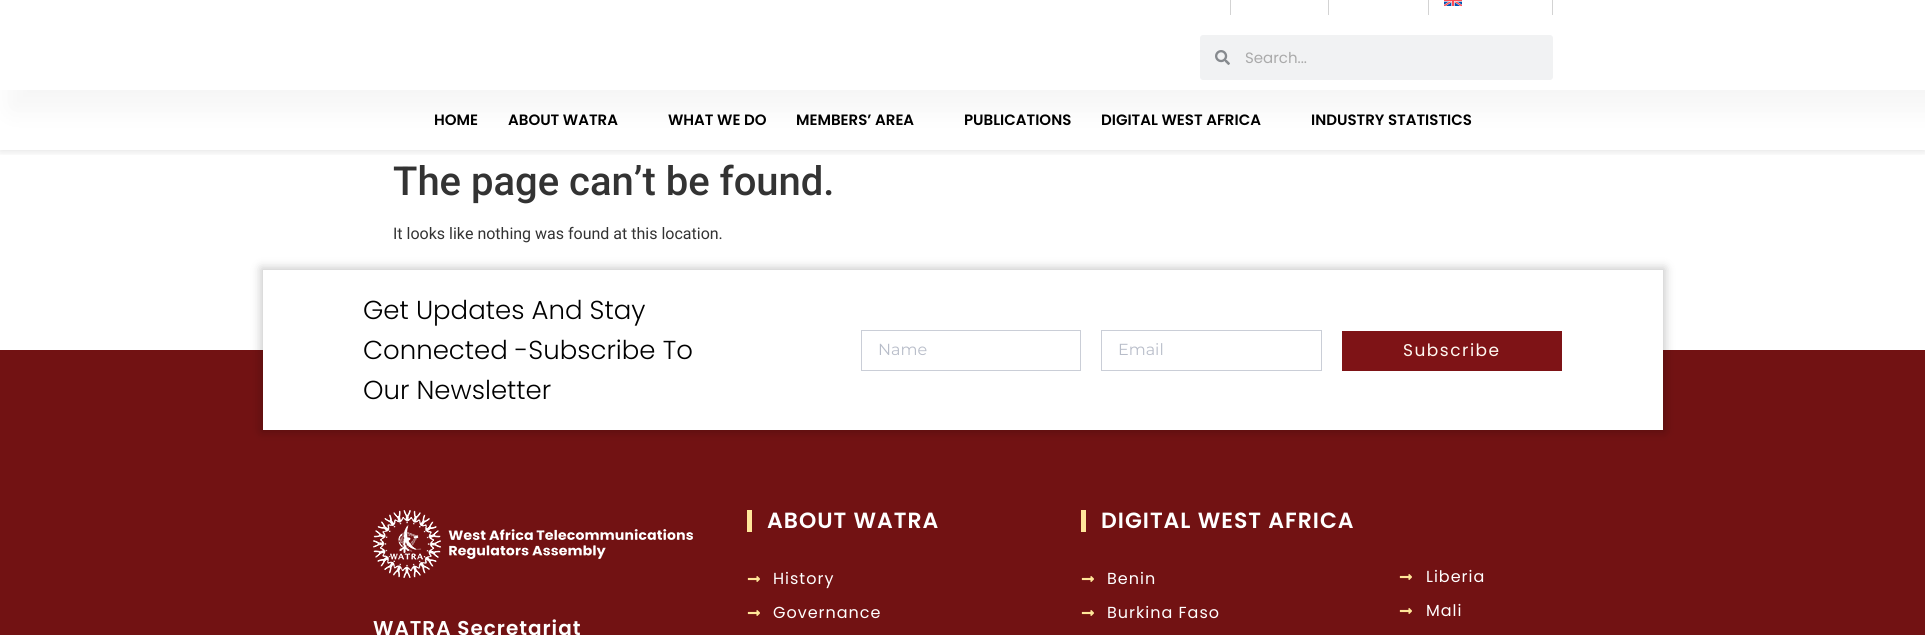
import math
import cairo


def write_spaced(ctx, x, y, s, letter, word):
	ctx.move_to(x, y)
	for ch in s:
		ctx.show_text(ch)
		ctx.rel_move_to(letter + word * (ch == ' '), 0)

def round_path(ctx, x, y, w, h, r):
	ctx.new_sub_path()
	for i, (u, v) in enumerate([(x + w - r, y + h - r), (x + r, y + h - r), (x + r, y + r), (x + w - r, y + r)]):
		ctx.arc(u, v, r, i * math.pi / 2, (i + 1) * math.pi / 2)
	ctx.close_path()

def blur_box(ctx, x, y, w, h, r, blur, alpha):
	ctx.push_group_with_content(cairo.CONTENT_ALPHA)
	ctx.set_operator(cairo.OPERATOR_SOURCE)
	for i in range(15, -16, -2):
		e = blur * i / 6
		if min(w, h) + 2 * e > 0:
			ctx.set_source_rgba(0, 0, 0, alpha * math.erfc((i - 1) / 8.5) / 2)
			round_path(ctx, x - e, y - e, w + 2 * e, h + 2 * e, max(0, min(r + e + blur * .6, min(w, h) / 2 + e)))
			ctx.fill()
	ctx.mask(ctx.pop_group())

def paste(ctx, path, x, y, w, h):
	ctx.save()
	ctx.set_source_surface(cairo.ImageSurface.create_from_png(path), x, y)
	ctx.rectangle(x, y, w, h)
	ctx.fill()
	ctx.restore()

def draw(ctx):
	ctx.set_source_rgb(1, 1, 1)
	ctx.paint()
	ctx.set_source_rgb(0, 0, 0)
	blur_box(ctx, 10, -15, 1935, 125, 0, 15, 0.04)
	ctx.save()
	ctx.rectangle(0, 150, 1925, 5)
	ctx.clip()
	blur_box(ctx, 0, 90, 1925, 60, 0, 5, 0.14)
	ctx.restore()
	ctx.set_source_rgb(1, 1, 1)
	ctx.rectangle(0, 0, 1925, 90)
	ctx.fill()
	ctx.set_source_rgb(0.827, 0.827, 0.827)
	ctx.rectangle(1230, 0, 1, 15)
	ctx.rectangle(1328, 0, 1, 15)
	ctx.rectangle(1428, 0, 1, 15)
	ctx.rectangle(1552, 0, 1, 15)
	ctx.fill()
	paste(ctx, 'media/1.png', 1444, 0, 18, 6)
	ctx.set_source_rgb(0.945, 0.949, 0.953)
	round_path(ctx, 1200, 35, 353, 45, 3)
	ctx.fill()
	paste(ctx, 'media/2.png', 1215, 50, 15, 15)
	ctx.select_font_face('Poppins')
	ctx.set_font_size(15)
	ctx.set_source_rgb(0.667, 0.667, 0.667)
	ctx.move_to(1245, 63)
	ctx.show_text('Search...')
	ctx.select_font_face('Poppins SemiBold')
	ctx.set_source_rgb(0, 0, 0)
	for x, y, s in [
		(434, 125, 'HOME'),
		(508, 125, 'ABOUT WATRA'),
		(668, 125, 'WHAT WE DO'),
		(796, 125, 'MEMBERS’ AREA'),
		(964, 125, 'PUBLICATIONS'),
		(1101, 125, 'DIGITAL WEST AFRICA'),
		(1311, 125, 'INDUSTRY STATISTICS'),
	]:
		ctx.move_to(x, y)
		ctx.show_text(s)
	ctx.select_font_face('Roboto Medium')
	ctx.set_font_size(40)
	ctx.set_source_rgb(0.2, 0.2, 0.2)
	ctx.move_to(393, 195)
	ctx.show_text('The page can’t be found.')
	ctx.select_font_face('Roboto')
	ctx.set_font_size(16)
	ctx.move_to(393, 239)
	ctx.show_text('It looks like nothing was found at this location.')
	ctx.set_source_rgb(0.447, 0.071, 0.078)
	ctx.rectangle(0, 350, 1925, 285)
	ctx.fill()
	ctx.set_source_rgb(0, 0, 0)
	blur_box(ctx, 261, 268, 1404, 164, 0, 5, 0.22)
	ctx.set_source_rgb(1, 1, 1)
	ctx.rectangle(263, 270, 1400, 160)
	ctx.fill()
	ctx.select_font_face('Poppins Light')
	ctx.set_font_size(26)
	ctx.set_source_rgb(0, 0, 0)
	for x, y, s in [
		(363, 319, 'Get Updates And Stay'),
		(363, 359, 'Connected -Subscribe To'),
		(363, 399, 'Our Newsletter'),
	]:
		ctx.move_to(x, y)
		ctx.show_text(s)
	ctx.rectangle(861.5, 330.5, 219, 40)
	ctx.set_source_rgb(0.792, 0.808, 0.843)
	ctx.set_line_width(1)
	ctx.stroke()
	ctx.select_font_face('Montserrat')
	ctx.set_font_size(16)
	ctx.set_source_rgb(0.722, 0.741, 0.788)
	ctx.move_to(878, 355)
	ctx.show_text('Name')
	ctx.rectangle(1101.5, 330.5, 220, 40)
	ctx.set_source_rgb(0.792, 0.808, 0.843)
	ctx.stroke()
	ctx.set_source_rgb(0.722, 0.741, 0.788)
	ctx.move_to(1118, 355)
	ctx.show_text('Email')
	ctx.set_source_rgb(0.494, 0.078, 0.086)
	ctx.rectangle(1342, 331, 220, 40)
	ctx.fill()
	ctx.select_font_face('Poppins')
	ctx.set_font_size(17)
	ctx.set_source_rgb(1, 0.969, 0.945)
	write_spaced(ctx, 1403, 356, 'Subscribe', 1.5, 0)
	ctx.set_source_rgb(1, 0.902, 0.6)
	ctx.rectangle(747, 510, 5, 22)
	ctx.fill()
	ctx.select_font_face('Poppins SemiBold')
	ctx.set_font_size(22)
	ctx.set_source_rgb(1, 1, 1)
	write_spaced(ctx, 767, 528, 'ABOUT WATRA', 1, 0)
	paste(ctx, 'media/3.png', 747, 576, 13, 6)
	ctx.select_font_face('Poppins')
	ctx.set_font_size(16)
	write_spaced(ctx, 773, 584, 'History', 1, 0)
	paste(ctx, 'media/3.png', 747, 610, 13, 6)
	write_spaced(ctx, 773, 618, 'Governance', 1, 0)
	ctx.set_source_rgb(1, 0.902, 0.6)
	ctx.rectangle(1081, 510, 5, 22)
	ctx.fill()
	ctx.select_font_face('Poppins SemiBold')
	ctx.set_font_size(22)
	ctx.set_source_rgb(1, 1, 1)
	write_spaced(ctx, 1101, 528, 'DIGITAL WEST AFRICA', 1, 0)
	paste(ctx, 'media/3.png', 1081, 576, 13, 6)
	ctx.select_font_face('Poppins')
	ctx.set_font_size(16)
	write_spaced(ctx, 1107, 584, 'Benin', 1, 0)
	paste(ctx, 'media/3.png', 1081, 610, 13, 6)
	write_spaced(ctx, 1107, 618, 'Burkina Faso', 1, 0)
	paste(ctx, 'media/3.png', 1399, 574, 13, 6)
	write_spaced(ctx, 1426, 582, 'Liberia', 1, 0)
	paste(ctx, 'media/3.png', 1399, 608, 13, 6)
	write_spaced(ctx, 1426, 616, 'Mali', 1, 0)
	paste(ctx, 'media/4.png', 373, 510, 320, 68)
	ctx.select_font_face('Poppins SemiBold')
	ctx.set_font_size(20)
	write_spaced(ctx, 373, 635, 'WATRA Secretariat', 1, 0)


surface = cairo.ImageSurface(cairo.FORMAT_RGB24, 1925, 635)
ctx = cairo.Context(surface)
options = cairo.FontOptions()
options.set_hint_metrics(cairo.HINT_METRICS_OFF)
options.set_hint_style(cairo.HINT_STYLE_NONE)
ctx.set_font_options(options)
ctx.set_miter_limit(4)
draw(ctx)
surface.write_to_png('image.png')
